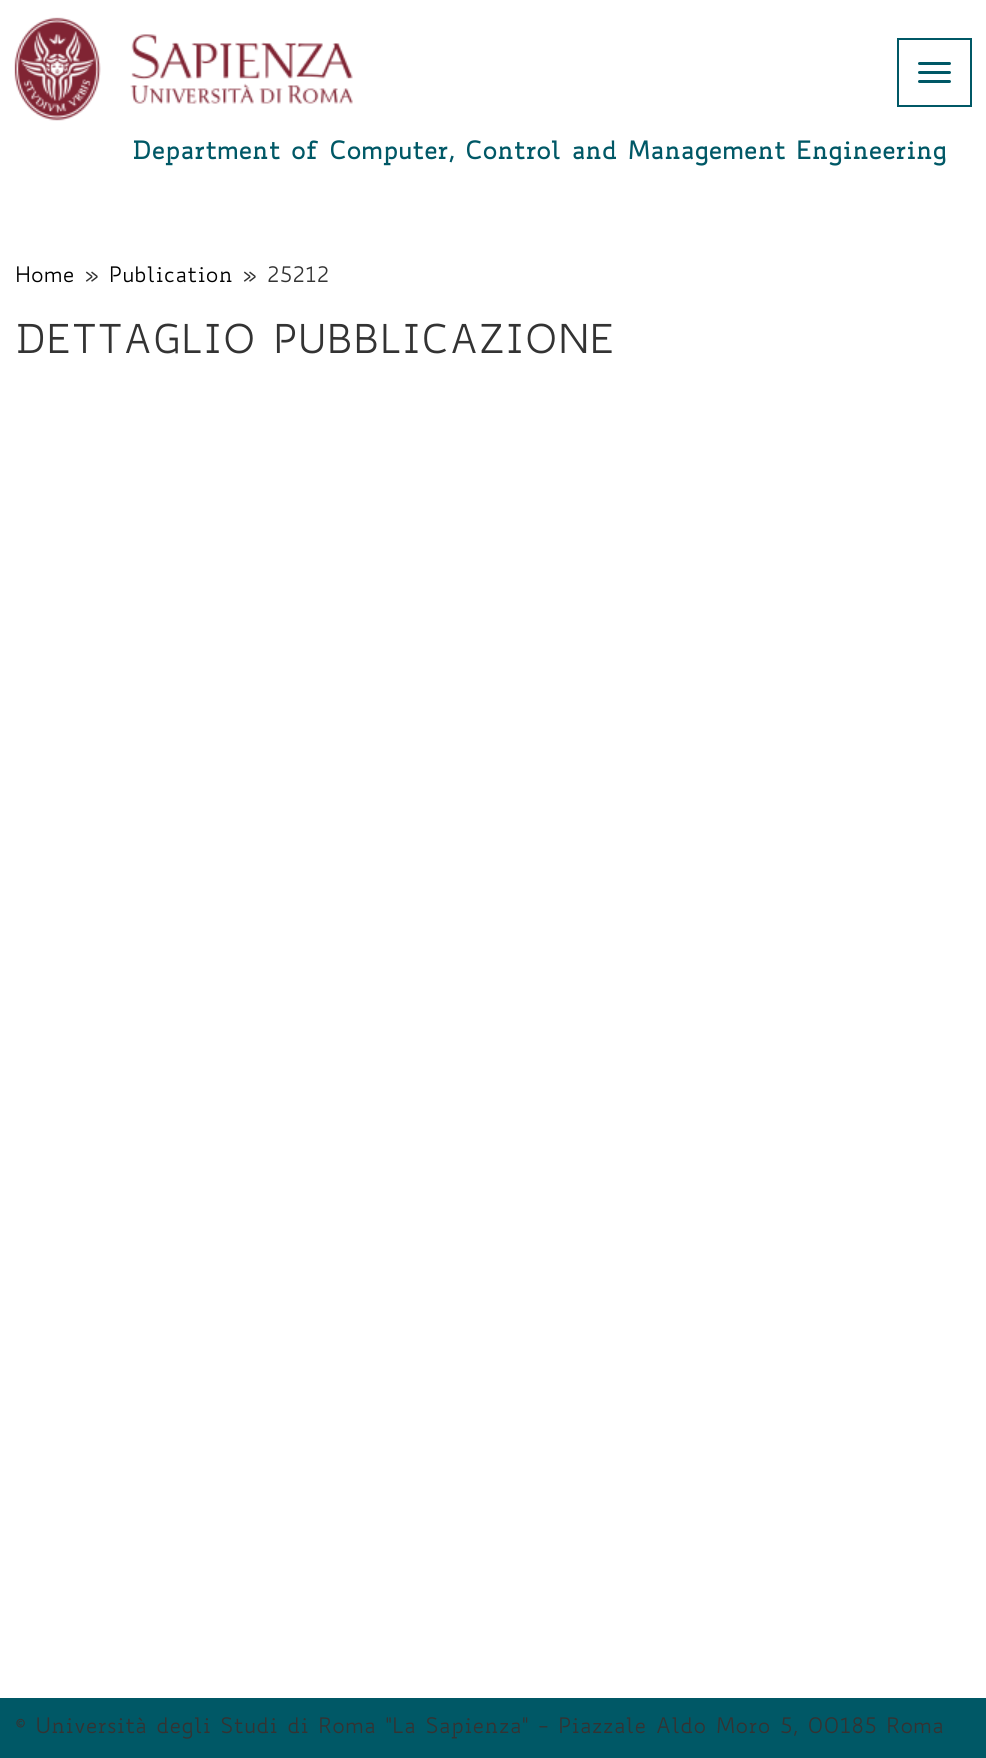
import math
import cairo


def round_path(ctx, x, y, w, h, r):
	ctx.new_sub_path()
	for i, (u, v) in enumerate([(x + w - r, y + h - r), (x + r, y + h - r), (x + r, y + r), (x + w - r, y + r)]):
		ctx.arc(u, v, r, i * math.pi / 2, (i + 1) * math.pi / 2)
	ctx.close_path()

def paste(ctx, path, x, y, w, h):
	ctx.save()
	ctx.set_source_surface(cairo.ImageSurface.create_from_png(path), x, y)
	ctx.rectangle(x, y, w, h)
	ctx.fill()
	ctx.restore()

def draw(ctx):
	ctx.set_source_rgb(1, 1, 1)
	ctx.paint()
	paste(ctx, 'media/1.png', 14, 17, 339, 104)
	ctx.rectangle(898, 39, 73, 67)
	ctx.set_source_rgb(0, 0.345, 0.4)
	ctx.stroke()
	round_path(ctx, 918, 62, 33, 3, 1.5)
	ctx.fill()
	round_path(ctx, 918, 71, 33, 3, 1.5)
	ctx.fill()
	round_path(ctx, 918, 80, 33, 3, 1.5)
	ctx.fill()
	ctx.select_font_face('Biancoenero', cairo.FONT_SLANT_NORMAL, cairo.FONT_WEIGHT_BOLD)
	ctx.set_font_size(24)
	ctx.move_to(132, 159)
	ctx.show_text('Department of Computer, Control and Management Engineering')
	ctx.select_font_face('Biancoenero')
	ctx.set_font_size(21)
	ctx.set_source_rgb(0, 0, 0)
	ctx.move_to(15, 282)
	ctx.show_text('Home')
	ctx.set_source_rgb(0.2, 0.2, 0.2)
	ctx.move_to(84, 282)
	ctx.show_text('»')
	ctx.set_source_rgb(0, 0, 0)
	ctx.move_to(109, 282)
	ctx.show_text('Publication')
	ctx.set_source_rgb(0.2, 0.2, 0.2)
	ctx.move_to(242, 282)
	ctx.show_text('» 25212')
	ctx.set_font_size(39)
	ctx.move_to(15, 353)
	ctx.show_text('DETTAGLIO PUBBLICAZIONE')
	ctx.set_source_rgb(0, 0.345, 0.4)
	ctx.rectangle(0, 1698, 986, 60)
	ctx.fill()
	ctx.set_font_size(21)
	ctx.set_source_rgb(0.2, 0.2, 0.2)
	ctx.move_to(15, 1733)
	ctx.show_text('© Università degli Studi di Roma "La Sapienza" - Piazzale Aldo Moro 5, 00185 Roma')


surface = cairo.ImageSurface(cairo.FORMAT_RGB24, 986, 1758)
ctx = cairo.Context(surface)
options = cairo.FontOptions()
options.set_hint_metrics(cairo.HINT_METRICS_OFF)
options.set_hint_style(cairo.HINT_STYLE_NONE)
ctx.set_font_options(options)
ctx.set_miter_limit(4)
draw(ctx)
surface.write_to_png('image.png')
